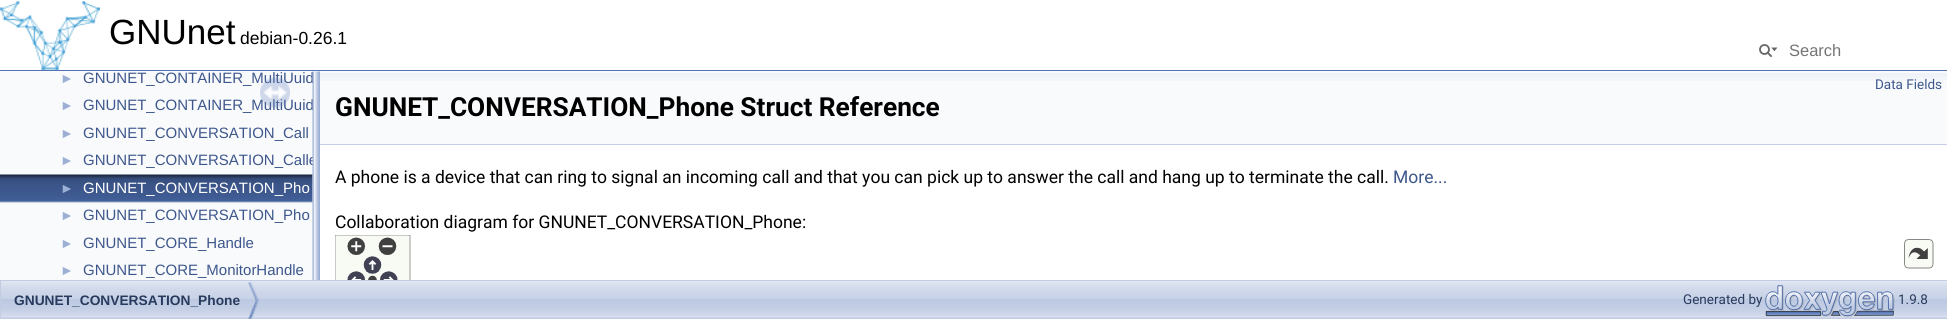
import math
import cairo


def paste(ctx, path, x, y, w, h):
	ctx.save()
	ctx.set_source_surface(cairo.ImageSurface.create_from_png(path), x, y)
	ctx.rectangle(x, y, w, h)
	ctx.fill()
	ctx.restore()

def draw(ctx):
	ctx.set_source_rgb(1, 1, 1)
	ctx.paint()
	ctx.set_source_rgb(0.325, 0.451, 0.706)
	ctx.rectangle(0, 70, 1947, 1)
	ctx.fill()
	paste(ctx, 'media/1.png', 0, 1, 100, 69)
	ctx.select_font_face('Liberation Sans')
	ctx.set_font_size(35)
	ctx.set_source_rgb(0, 0, 0)
	ctx.move_to(109, 44)
	ctx.show_text('GNUnet')
	ctx.set_font_size(17.5)
	ctx.move_to(240, 44)
	ctx.show_text('debian-0.26.1')
	paste(ctx, 'media/2.png', 1759, 44, 19, 13)
	ctx.set_font_size(16.5)
	ctx.set_source_rgb(0.459, 0.459, 0.459)
	ctx.move_to(1789, 56)
	ctx.show_text('Search')
	ctx.set_source_rgb(0.976, 0.98, 0.988)
	ctx.rectangle(0, 71, 313, 209)
	ctx.fill()
	ctx.set_font_size(14)
	ctx.set_source_rgb(0.612, 0.686, 0.831)
	ctx.move_to(60, 83)
	ctx.show_text('►')
	ctx.set_font_size(15)
	ctx.set_source_rgb(0.239, 0.341, 0.549)
	ctx.move_to(83, 83)
	ctx.show_text('GNUNET_CONTAINER_MultiUuid')
	ctx.set_font_size(14)
	ctx.set_source_rgb(0.612, 0.686, 0.831)
	ctx.move_to(60, 110)
	ctx.show_text('►')
	ctx.set_font_size(15)
	ctx.set_source_rgb(0.239, 0.341, 0.549)
	ctx.move_to(83, 110)
	ctx.show_text('GNUNET_CONTAINER_MultiUuid')
	ctx.set_font_size(14)
	ctx.set_source_rgb(0.612, 0.686, 0.831)
	ctx.move_to(60, 138)
	ctx.show_text('►')
	ctx.set_font_size(15)
	ctx.set_source_rgb(0.239, 0.341, 0.549)
	ctx.move_to(83, 138)
	ctx.show_text('GNUNET_CONVERSATION_Call')
	ctx.set_font_size(14)
	ctx.set_source_rgb(0.612, 0.686, 0.831)
	ctx.move_to(60, 165)
	ctx.show_text('►')
	ctx.set_font_size(15)
	ctx.set_source_rgb(0.239, 0.341, 0.549)
	ctx.move_to(83, 165)
	ctx.show_text('GNUNET_CONVERSATION_Calle')
	paste(ctx, 'media/3.png', 0, 174, 313, 29)
	ctx.set_font_size(14)
	ctx.set_source_rgb(0.612, 0.686, 0.831)
	ctx.move_to(60, 193)
	ctx.show_text('►')
	ctx.set_font_size(15)
	ctx.set_source_rgb(1, 1, 1)
	ctx.move_to(83, 193)
	ctx.show_text('GNUNET_CONVERSATION_Pho')
	ctx.set_font_size(14)
	ctx.set_source_rgb(0.612, 0.686, 0.831)
	ctx.move_to(60, 220)
	ctx.show_text('►')
	ctx.set_font_size(15)
	ctx.set_source_rgb(0.239, 0.341, 0.549)
	ctx.move_to(83, 220)
	ctx.show_text('GNUNET_CONVERSATION_Pho')
	ctx.set_font_size(14)
	ctx.set_source_rgb(0.612, 0.686, 0.831)
	ctx.move_to(60, 248)
	ctx.show_text('►')
	ctx.set_font_size(15)
	ctx.set_source_rgb(0.239, 0.341, 0.549)
	ctx.move_to(83, 248)
	ctx.show_text('GNUNET_CORE_Handle')
	ctx.set_font_size(14)
	ctx.set_source_rgb(0.612, 0.686, 0.831)
	ctx.move_to(60, 275)
	ctx.show_text('►')
	ctx.set_font_size(15)
	ctx.set_source_rgb(0.239, 0.341, 0.549)
	ctx.move_to(83, 275)
	ctx.show_text('GNUNET_CORE_MonitorHandle')
	paste(ctx, 'media/4.png', 260, 77, 30, 31)
	paste(ctx, 'media/5.png', 312, 71, 8, 209)
	ctx.set_source_rgb(0.976, 0.98, 0.988)
	ctx.rectangle(320, 71, 1627, 73)
	ctx.fill()
	paste(ctx, 'media/6.png', 320, 73, 1627, 8)
	ctx.set_source_rgb(0.769, 0.812, 0.898)
	ctx.rectangle(320, 144, 1627, 1)
	ctx.fill()
	ctx.select_font_face('Roboto')
	ctx.set_font_size(13.5)
	ctx.set_source_rgb(0.239, 0.341, 0.549)
	ctx.move_to(1875, 89)
	ctx.show_text('Data Fields')
	ctx.select_font_face('Roboto', cairo.FONT_SLANT_NORMAL, cairo.FONT_WEIGHT_BOLD)
	ctx.set_font_size(26.25)
	ctx.set_source_rgb(0, 0, 0)
	ctx.move_to(335, 116)
	ctx.show_text('GNUNET_CONVERSATION_Phone Struct Reference')
	ctx.select_font_face('Roboto')
	ctx.set_font_size(17.5)
	ctx.move_to(335, 183)
	ctx.show_text('A phone is a device that can ring to signal an incoming call and that you can pick up to answer the call and hang up to terminate the call.')
	ctx.set_source_rgb(0.239, 0.341, 0.549)
	ctx.move_to(1393, 183)
	ctx.show_text('More...')
	ctx.set_source_rgb(0, 0, 0)
	ctx.move_to(335, 228)
	ctx.show_text('Collaboration diagram for GNUNET_CONVERSATION_Phone:')
	paste(ctx, 'media/7.png', 335, 235, 1599, 45)
	paste(ctx, 'media/8.png', 1, 281, 1946, 38)
	ctx.rectangle(0.5, 280.5, 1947, 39)
	ctx.set_source_rgb(0.761, 0.804, 0.894)
	ctx.set_line_width(1)
	ctx.stroke()
	paste(ctx, 'media/9.png', 248, 282, 11, 37)
	ctx.select_font_face('Liberation Sans', cairo.FONT_SLANT_NORMAL, cairo.FONT_WEIGHT_BOLD)
	ctx.set_font_size(13.75)
	ctx.set_source_rgb(0.157, 0.227, 0.365)
	ctx.move_to(14, 305)
	ctx.show_text('GNUNET_CONVERSATION_Phone')
	ctx.select_font_face('Roboto')
	ctx.set_font_size(13.5)
	ctx.move_to(1683, 304)
	ctx.show_text('Generated by')
	paste(ctx, 'media/10.png', 1765, 285, 130, 33)
	ctx.move_to(1898, 304)
	ctx.show_text('1.9.8')


surface = cairo.ImageSurface(cairo.FORMAT_RGB24, 1947, 319)
ctx = cairo.Context(surface)
options = cairo.FontOptions()
options.set_hint_metrics(cairo.HINT_METRICS_OFF)
options.set_hint_style(cairo.HINT_STYLE_NONE)
ctx.set_font_options(options)
ctx.set_miter_limit(4)
draw(ctx)
surface.write_to_png('image.png')
